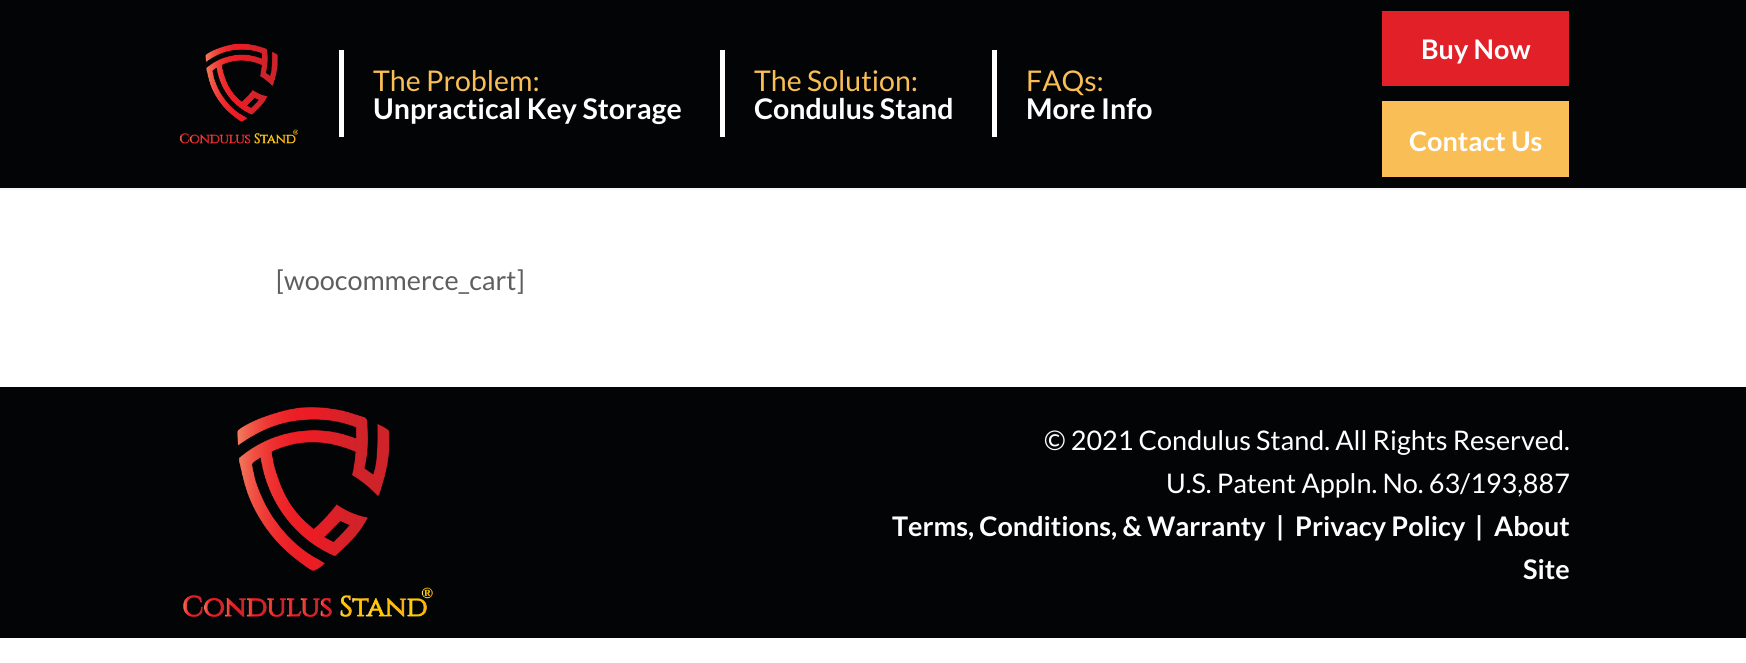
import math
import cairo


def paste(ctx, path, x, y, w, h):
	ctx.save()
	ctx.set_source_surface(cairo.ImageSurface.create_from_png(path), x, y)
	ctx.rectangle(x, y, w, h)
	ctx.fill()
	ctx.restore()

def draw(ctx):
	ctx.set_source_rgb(1, 1, 1)
	ctx.paint()
	ctx.set_source_rgb(0.012, 0.016, 0.02)
	ctx.rectangle(0, 0, 1746, 188)
	ctx.fill()
	ctx.set_source_rgb(0.961, 0.961, 0.961)
	ctx.rectangle(0, 188, 1746, 2)
	ctx.fill()
	paste(ctx, 'media/1.png', 179, 43, 119, 101)
	ctx.set_source_rgb(1, 1, 1)
	ctx.rectangle(339, 50, 5, 87)
	ctx.fill()
	ctx.select_font_face('Lato')
	ctx.set_font_size(28.5)
	ctx.set_source_rgb(0.973, 0.745, 0.333)
	ctx.move_to(373, 91)
	ctx.show_text('The Problem:')
	ctx.select_font_face('Lato', cairo.FONT_SLANT_NORMAL, cairo.FONT_WEIGHT_BOLD)
	ctx.set_source_rgb(1, 1, 1)
	ctx.move_to(373, 119)
	ctx.show_text('Unpractical Key Storage')
	ctx.rectangle(720, 50, 5, 87)
	ctx.fill()
	ctx.select_font_face('Lato')
	ctx.set_source_rgb(0.973, 0.745, 0.333)
	ctx.move_to(754, 91)
	ctx.show_text('The Solution:')
	ctx.select_font_face('Lato', cairo.FONT_SLANT_NORMAL, cairo.FONT_WEIGHT_BOLD)
	ctx.set_source_rgb(1, 1, 1)
	ctx.move_to(754, 119)
	ctx.show_text('Condulus Stand')
	ctx.rectangle(992, 50, 5, 87)
	ctx.fill()
	ctx.select_font_face('Lato')
	ctx.set_source_rgb(0.973, 0.745, 0.333)
	ctx.move_to(1026, 91)
	ctx.show_text('FAQs:')
	ctx.select_font_face('Lato', cairo.FONT_SLANT_NORMAL, cairo.FONT_WEIGHT_BOLD)
	ctx.set_source_rgb(1, 1, 1)
	ctx.move_to(1026, 119)
	ctx.show_text('More Info')
	ctx.set_source_rgb(0.882, 0.125, 0.153)
	ctx.rectangle(1382, 11, 187, 75)
	ctx.fill()
	ctx.set_font_size(27)
	ctx.set_source_rgb(1, 1, 1)
	ctx.move_to(1421, 59)
	ctx.show_text('Buy Now')
	ctx.set_source_rgb(0.973, 0.745, 0.333)
	ctx.rectangle(1382, 101, 187, 76)
	ctx.fill()
	ctx.set_source_rgb(1, 1, 1)
	ctx.move_to(1409, 151)
	ctx.show_text('Contact Us')
	ctx.select_font_face('Lato')
	ctx.set_source_rgb(0.369, 0.369, 0.369)
	ctx.move_to(276, 290)
	ctx.show_text('[woocommerce_cart]')
	ctx.set_source_rgb(0.012, 0.016, 0.02)
	ctx.rectangle(0, 387, 1746, 251)
	ctx.fill()
	paste(ctx, 'media/2.png', 183, 407, 250, 210)
	ctx.set_source_rgb(1, 1, 1)
	ctx.move_to(1044, 450)
	ctx.show_text('© 2021 Condulus Stand. All Rights Reserved.')
	ctx.move_to(1166, 493)
	ctx.show_text('U.S. Patent Appln. No. 63/193,887')
	ctx.select_font_face('Lato', cairo.FONT_SLANT_NORMAL, cairo.FONT_WEIGHT_BOLD)
	for x, y, s in [
		(892, 536, 'Terms, Conditions, & Warranty'),
		(1276, 536, '|'),
		(1295, 536, 'Privacy Policy'),
		(1475, 536, '|'),
		(1494, 536, 'About'),
		(1523, 579, 'Site'),
	]:
		ctx.move_to(x, y)
		ctx.show_text(s)


surface = cairo.ImageSurface(cairo.FORMAT_RGB24, 1746, 663)
ctx = cairo.Context(surface)
options = cairo.FontOptions()
options.set_hint_metrics(cairo.HINT_METRICS_OFF)
options.set_hint_style(cairo.HINT_STYLE_NONE)
ctx.set_font_options(options)
ctx.set_miter_limit(4)
draw(ctx)
surface.write_to_png('image.png')
